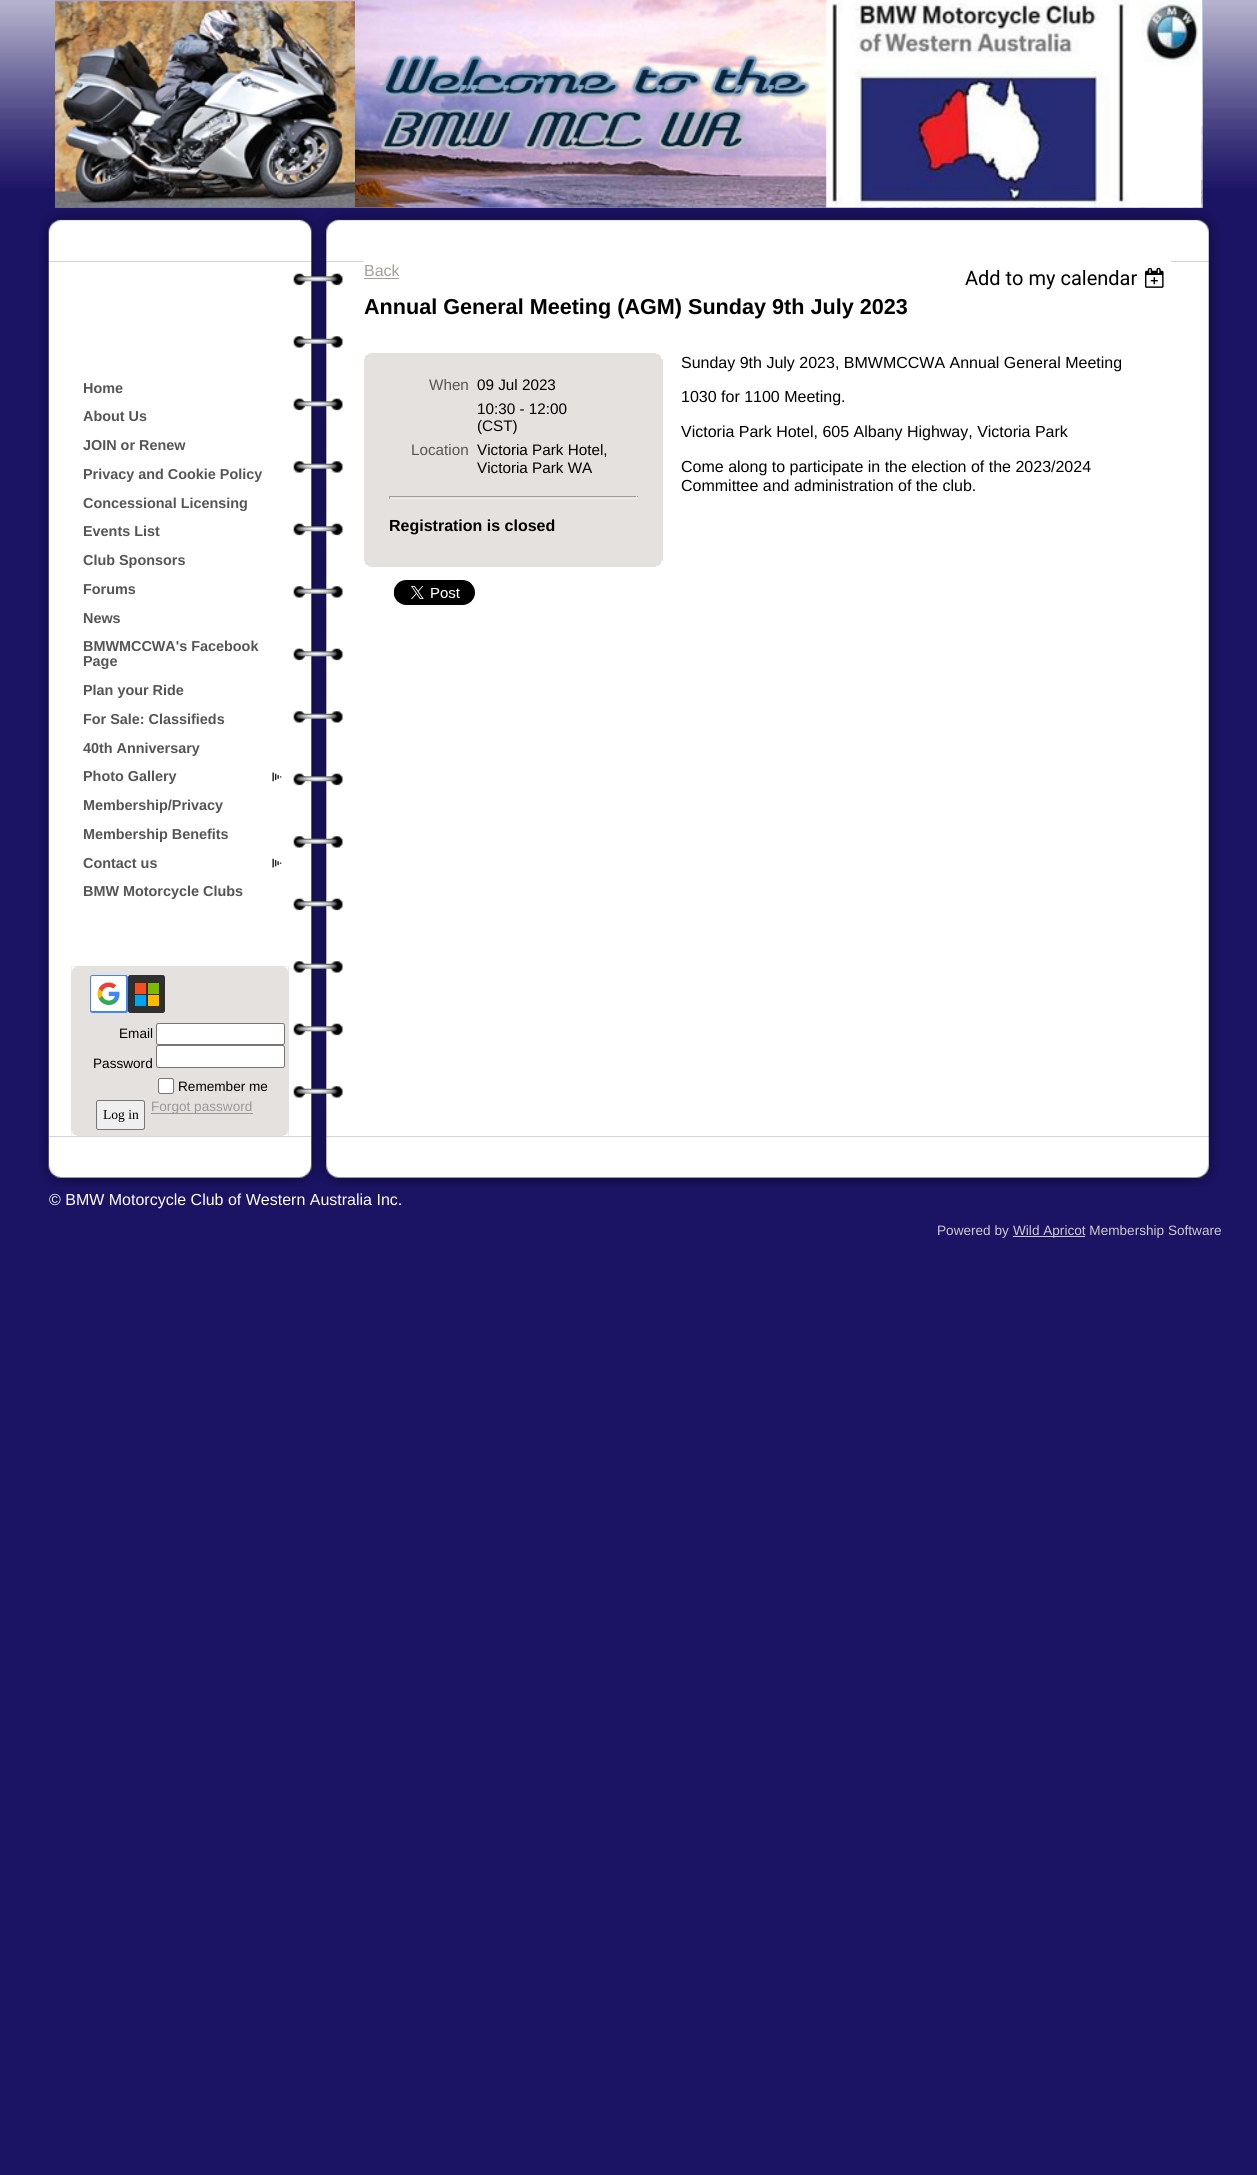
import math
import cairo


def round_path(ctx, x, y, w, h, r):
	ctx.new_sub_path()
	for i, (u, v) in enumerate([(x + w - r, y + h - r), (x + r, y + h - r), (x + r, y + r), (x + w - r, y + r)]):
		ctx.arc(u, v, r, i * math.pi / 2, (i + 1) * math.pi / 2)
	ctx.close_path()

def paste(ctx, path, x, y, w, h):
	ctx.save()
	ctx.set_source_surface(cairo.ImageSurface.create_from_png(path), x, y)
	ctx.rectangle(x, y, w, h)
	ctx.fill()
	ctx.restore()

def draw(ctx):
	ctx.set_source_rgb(0.106, 0.078, 0.392)
	ctx.paint()
	paste(ctx, 'media/1.png', 0, 0, 1257, 188)
	ctx.set_source_rgb(0.4, 0.6, 0.8)
	ctx.rectangle(55, 0, 1148, 208)
	ctx.fill()
	paste(ctx, 'media/2.png', 55, 0, 1148, 208)
	paste(ctx, 'media/3.png', 55, 1, 300, 207)
	paste(ctx, 'media/4.png', 380, 54, 431, 98)
	paste(ctx, 'media/5.png', 826, 0, 376, 208)
	paste(ctx, 'media/7.png', 39, 261, 1180, 876)
	paste(ctx, 'media/6.png', 39, 210, 1180, 52)
	paste(ctx, 'media/8.png', 293, 273, 12, 825)
	paste(ctx, 'media/9.png', 331, 273, 12, 825)
	paste(ctx, 'media/10.png', 296, 276, 42, 818)
	ctx.select_font_face('Liberation Sans', cairo.FONT_SLANT_NORMAL, cairo.FONT_WEIGHT_BOLD)
	ctx.set_font_size(14.4)
	ctx.set_source_rgb(0.333, 0.333, 0.333)
	for x, y, s in [
		(83, 393, 'Home'),
		(83, 421, 'About Us'),
		(83, 450, 'JOIN or Renew'),
		(83, 479, 'Privacy and Cookie Policy'),
		(83, 508, 'Concessional Licensing'),
		(83, 536, 'Events List'),
		(83, 565, 'Club Sponsors'),
		(83, 594, 'Forums'),
		(83, 623, 'News'),
		(83, 651, 'BMWMCCWA\'s Facebook'),
		(83, 666, 'Page'),
		(83, 695, 'Plan your Ride'),
		(83, 724, 'For Sale: Classifieds'),
		(83, 753, '40th Anniversary'),
	]:
		ctx.move_to(x, y)
		ctx.show_text(s)
	paste(ctx, 'media/11.png', 272, 772, 10, 10)
	for x, y, s in [
		(83, 781, 'Photo Gallery'),
		(83, 810, 'Membership/Privacy'),
		(83, 839, 'Membership Benefits'),
	]:
		ctx.move_to(x, y)
		ctx.show_text(s)
	paste(ctx, 'media/12.png', 272, 858, 10, 10)
	ctx.move_to(83, 868)
	ctx.show_text('Contact us')
	ctx.move_to(83, 896)
	ctx.show_text('BMW Motorcycle Clubs')
	ctx.set_source_rgb(0.894, 0.882, 0.875)
	ctx.rectangle(71, 966, 218, 170)
	ctx.fill()
	paste(ctx, 'media/13.png', 71, 966, 218, 6)
	ctx.set_source_rgb(0.259, 0.522, 0.957)
	round_path(ctx, 90.5, 975.5, 37, 37, 2)
	ctx.fill_preserve()
	ctx.set_line_width(1)
	ctx.stroke()
	paste(ctx, 'media/14.png', 91, 976, 35, 35)
	ctx.set_source_rgb(0.184, 0.184, 0.184)
	round_path(ctx, 128.5, 975.5, 36, 37, 2)
	ctx.fill_preserve()
	ctx.stroke()
	ctx.set_source_rgb(0.949, 0.314, 0.133)
	ctx.rectangle(135, 983, 11, 11)
	ctx.fill()
	ctx.set_source_rgb(0, 0.643, 0.937)
	ctx.rectangle(135, 995, 11, 11)
	ctx.fill()
	ctx.set_source_rgb(0.498, 0.729, 0)
	ctx.rectangle(148, 983, 11, 11)
	ctx.fill()
	ctx.set_source_rgb(1, 0.725, 0)
	ctx.rectangle(148, 995, 11, 11)
	ctx.fill()
	ctx.select_font_face('Liberation Sans')
	ctx.set_font_size(13.6)
	ctx.set_source_rgb(0, 0, 0)
	ctx.move_to(119, 1038)
	ctx.show_text('Email')
	ctx.set_source_rgb(1, 1, 1)
	round_path(ctx, 156.5, 1023.5, 128, 21, 2)
	ctx.fill_preserve()
	ctx.set_source_rgb(0.463, 0.463, 0.463)
	ctx.stroke()
	ctx.set_source_rgb(0, 0, 0)
	ctx.move_to(93, 1068)
	ctx.show_text('Password')
	ctx.set_source_rgb(1, 1, 1)
	round_path(ctx, 156.5, 1045.5, 128, 22, 2)
	ctx.fill_preserve()
	ctx.set_source_rgb(0.463, 0.463, 0.463)
	ctx.stroke()
	ctx.set_source_rgb(1, 1, 1)
	round_path(ctx, 158.5, 1078.5, 15, 15, 2)
	ctx.fill_preserve()
	ctx.set_source_rgb(0.463, 0.463, 0.463)
	ctx.stroke()
	ctx.set_source_rgb(0, 0, 0)
	ctx.move_to(178, 1091)
	ctx.show_text('Remember me')
	ctx.set_source_rgb(0.6, 0.6, 0.6)
	ctx.rectangle(151, 1113, 102, 1)
	ctx.fill()
	ctx.move_to(151, 1111)
	ctx.show_text('Forgot password')
	ctx.set_source_rgb(0.937, 0.937, 0.937)
	round_path(ctx, 96.5, 1100.5, 48, 29, 2)
	ctx.fill_preserve()
	ctx.set_source_rgb(0.463, 0.463, 0.463)
	ctx.stroke()
	ctx.select_font_face('Liberation Serif')
	ctx.set_source_rgb(0, 0, 0)
	ctx.move_to(103, 1119)
	ctx.show_text('Log in')
	paste(ctx, 'media/15.png', 71, 1131, 218, 5)
	ctx.set_source_rgb(1, 1, 1)
	ctx.rectangle(364, 261, 807, 1)
	ctx.fill()
	ctx.select_font_face('Liberation Sans')
	ctx.set_font_size(16)
	ctx.set_source_rgb(0.655, 0.616, 0.588)
	ctx.move_to(364, 276)
	ctx.show_text('Back')
	ctx.rectangle(364, 278, 35, 1)
	ctx.fill()
	ctx.select_font_face('Roboto')
	ctx.set_font_size(20)
	ctx.set_source_rgb(0, 0, 0)
	ctx.move_to(965, 285)
	ctx.show_text('Add to my calendar')
	paste(ctx, 'media/16.png', 1145, 267, 19, 21)
	ctx.select_font_face('Liberation Sans', cairo.FONT_SLANT_NORMAL, cairo.FONT_WEIGHT_BOLD)
	ctx.set_font_size(21.6)
	ctx.move_to(364, 314)
	ctx.show_text('Annual General Meeting (AGM) Sunday 9th July 2023')
	ctx.set_source_rgb(0.894, 0.882, 0.875)
	ctx.rectangle(370, 353, 286, 1)
	ctx.rectangle(368, 354, 291, 1)
	ctx.rectangle(366, 355, 294, 1)
	ctx.rectangle(365, 356, 296, 3)
	ctx.rectangle(364, 359, 299, 202)
	ctx.fill()
	ctx.select_font_face('Liberation Sans')
	ctx.set_font_size(15.25)
	ctx.set_source_rgb(0.333, 0.333, 0.333)
	ctx.move_to(429, 390)
	ctx.show_text('When')
	ctx.set_source_rgb(0, 0, 0)
	for x, y, s in [
		(477, 390, '09 Jul 2023'),
		(477, 414, '10:30 - 12:00'),
		(477, 431, '(CST)'),
	]:
		ctx.move_to(x, y)
		ctx.show_text(s)
	ctx.set_source_rgb(0.333, 0.333, 0.333)
	ctx.move_to(411, 455)
	ctx.show_text('Location')
	ctx.set_source_rgb(0, 0, 0)
	ctx.move_to(477, 455)
	ctx.show_text('Victoria Park Hotel,')
	ctx.move_to(477, 473)
	ctx.show_text('Victoria Park WA')
	ctx.set_source_rgb(0.624, 0.624, 0.624)
	ctx.rectangle(389, 496, 249, 1)
	ctx.fill()
	ctx.set_source_rgb(0.933, 0.933, 0.933)
	ctx.rectangle(636, 496, 1, 3)
	ctx.rectangle(389, 498, 249, 1)
	ctx.fill()
	ctx.set_source_rgb(0.624, 0.624, 0.624)
	ctx.rectangle(389, 496, 1, 3)
	ctx.fill()
	ctx.select_font_face('Liberation Sans', cairo.FONT_SLANT_NORMAL, cairo.FONT_WEIGHT_BOLD)
	ctx.set_font_size(16)
	ctx.set_source_rgb(0, 0, 0)
	ctx.move_to(389, 531)
	ctx.show_text('Registration is closed')
	ctx.set_source_rgb(0.894, 0.882, 0.875)
	ctx.rectangle(365, 561, 296, 3)
	ctx.rectangle(366, 564, 294, 1)
	ctx.rectangle(368, 565, 291, 1)
	ctx.rectangle(370, 566, 286, 1)
	ctx.fill()
	ctx.select_font_face('Liberation Sans')
	ctx.set_source_rgb(0, 0, 0)
	for x, y, s in [
		(681, 368, 'Sunday 9th July 2023, BMWMCCWA Annual General Meeting'),
		(681, 402, '1030 for 1100 Meeting.'),
		(681, 437, 'Victoria Park Hotel, 605 Albany Highway, Victoria Park'),
		(681, 472, 'Come along to participate in the election of the 2023/2024'),
		(681, 491, 'Committee and administration of the club.'),
	]:
		ctx.move_to(x, y)
		ctx.show_text(s)
	paste(ctx, 'media/17.png', 393, 580, 82, 25)
	paste(ctx, 'media/18.png', 39, 1136, 1180, 51)
	ctx.set_source_rgb(1, 1, 1)
	ctx.move_to(49, 1205)
	ctx.show_text('© BMW Motorcycle Club of Western Australia Inc.')
	ctx.set_font_size(13.6)
	ctx.set_source_rgb(0.812, 0.796, 0.792)
	ctx.move_to(937, 1235)
	ctx.show_text('Powered by')
	ctx.rectangle(1013, 1236, 72, 1)
	ctx.fill()
	ctx.move_to(1013, 1235)
	ctx.show_text('Wild Apricot Membership Software')


surface = cairo.ImageSurface(cairo.FORMAT_RGB24, 1257, 2175)
ctx = cairo.Context(surface)
options = cairo.FontOptions()
options.set_hint_metrics(cairo.HINT_METRICS_OFF)
options.set_hint_style(cairo.HINT_STYLE_NONE)
ctx.set_font_options(options)
ctx.set_miter_limit(4)
draw(ctx)
surface.write_to_png('image.png')
